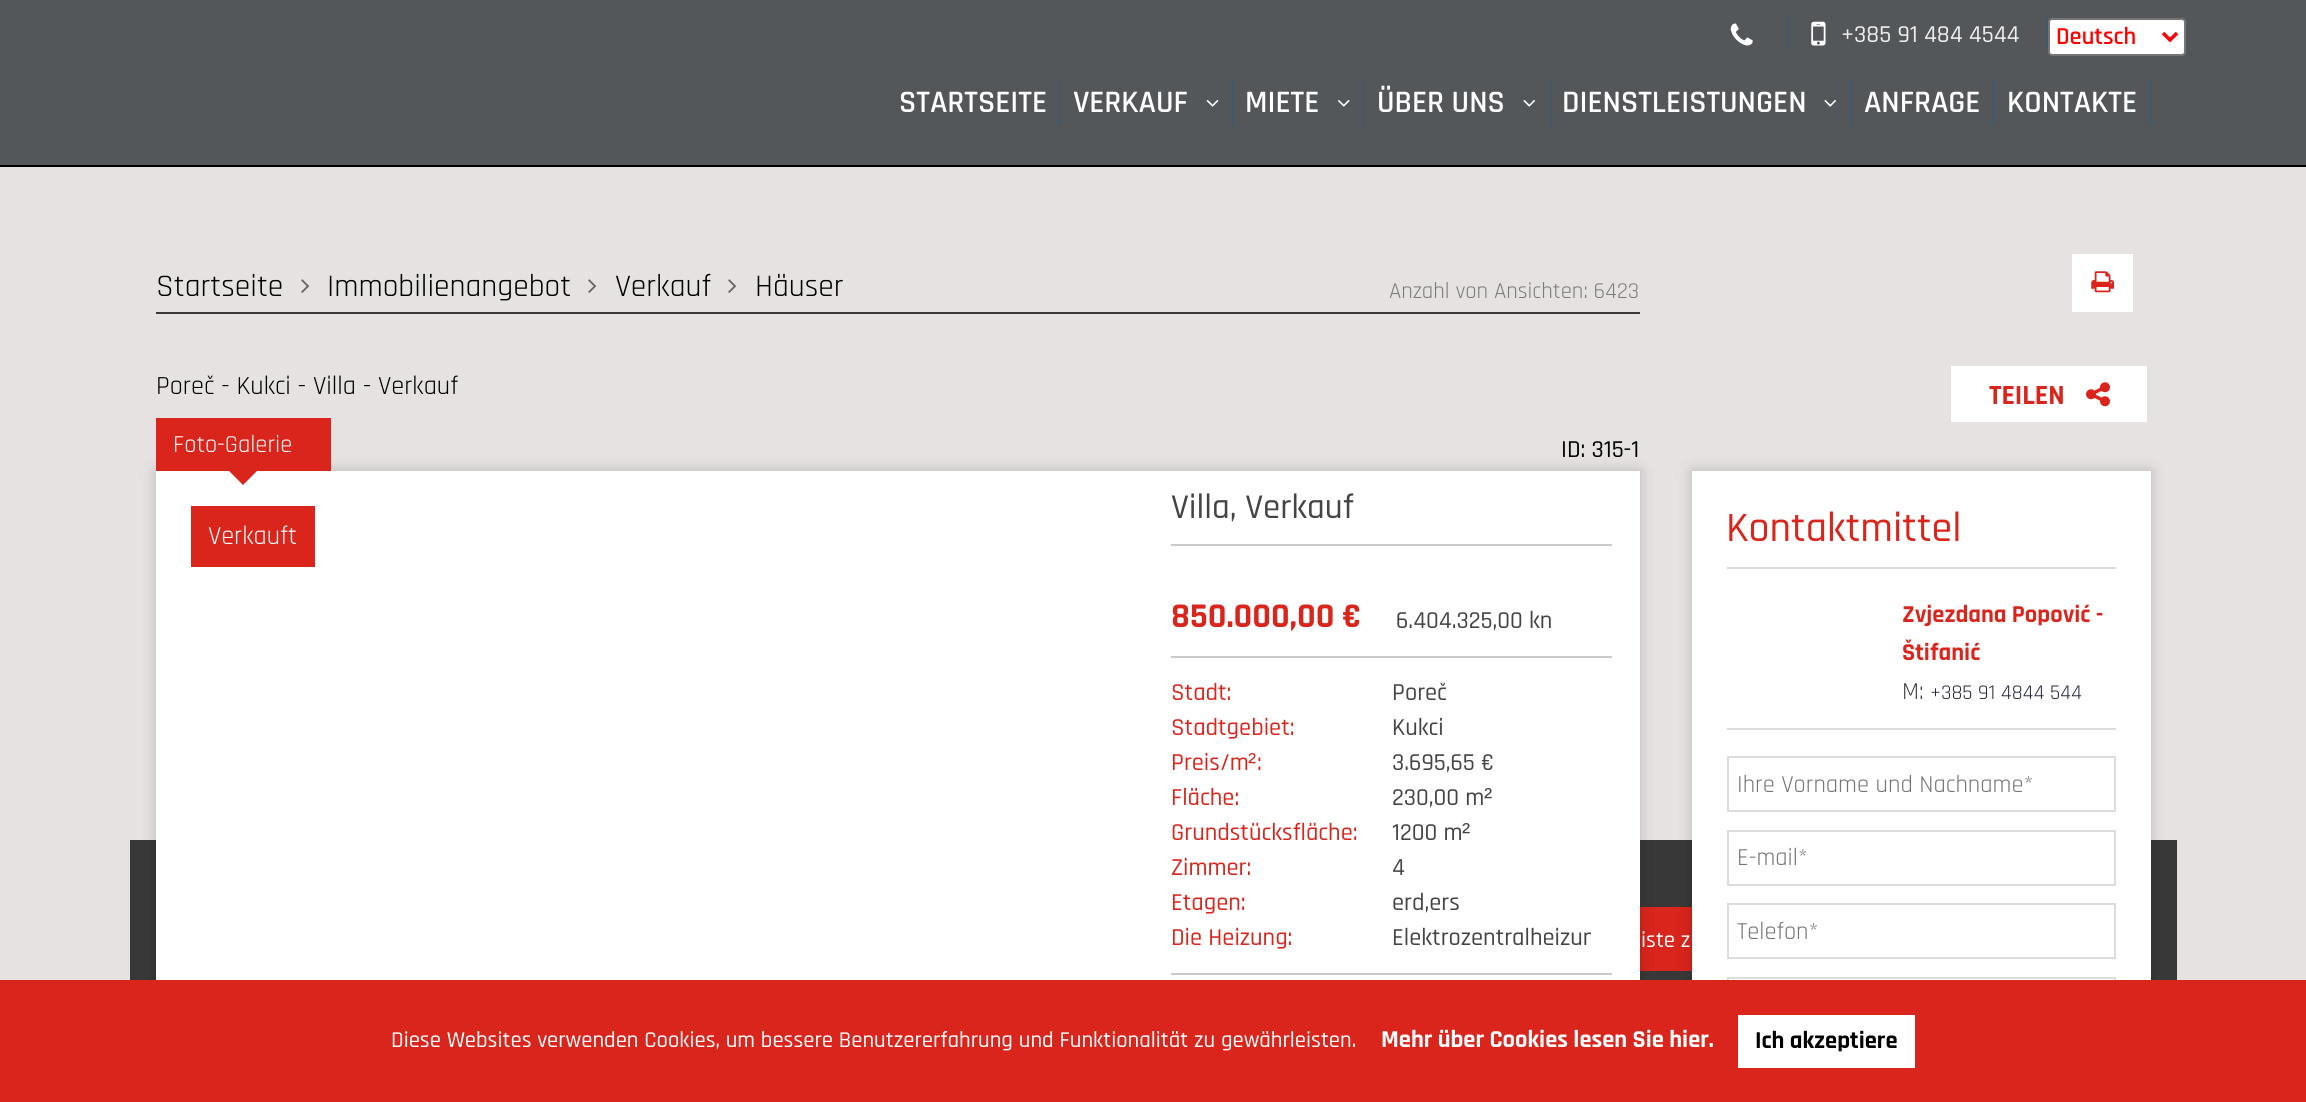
import math
import cairo


def round_path(ctx, x, y, w, h, r):
	ctx.new_sub_path()
	for i, (u, v) in enumerate([(x + w - r, y + h - r), (x + r, y + h - r), (x + r, y + r), (x + w - r, y + r)]):
		ctx.arc(u, v, r, i * math.pi / 2, (i + 1) * math.pi / 2)
	ctx.close_path()

def blur_box(ctx, x, y, w, h, r, blur, alpha):
	ctx.push_group_with_content(cairo.CONTENT_ALPHA)
	ctx.set_operator(cairo.OPERATOR_SOURCE)
	for i in range(15, -16, -2):
		e = blur * i / 6
		if min(w, h) + 2 * e > 0:
			ctx.set_source_rgba(0, 0, 0, alpha * math.erfc((i - 1) / 8.5) / 2)
			round_path(ctx, x - e, y - e, w + 2 * e, h + 2 * e, max(0, min(r + e + blur * .6, min(w, h) / 2 + e)))
			ctx.fill()
	ctx.mask(ctx.pop_group())

def paste(ctx, path, x, y, w, h):
	ctx.save()
	ctx.set_source_surface(cairo.ImageSurface.create_from_png(path), x, y)
	ctx.rectangle(x, y, w, h)
	ctx.fill()
	ctx.restore()

def draw(ctx):
	ctx.set_source_rgb(0.898, 0.886, 0.882)
	ctx.paint()
	ctx.set_source_rgb(0.329, 0.341, 0.353)
	ctx.rectangle(0, 0, 2306, 165)
	ctx.fill()
	ctx.set_source_rgb(0, 0, 0)
	ctx.rectangle(0, 165, 2306, 2)
	ctx.fill()
	ctx.set_source_rgb(0.239, 0.353, 0.443)
	ctx.rectangle(1787, 18, 2, 31)
	ctx.fill()
	paste(ctx, 'media/1.png', 1730, 23, 23, 23)
	ctx.rectangle(2046, 18, 2, 31)
	ctx.fill()
	paste(ctx, 'media/2.png', 1811, 21, 15, 25)
	ctx.select_font_face('Rajdhani Medium')
	ctx.set_font_size(24.5)
	ctx.set_source_rgb(0.933, 0.933, 0.933)
	ctx.move_to(1841, 42)
	ctx.show_text('+385 91 484 4544')
	ctx.set_source_rgb(1, 1, 1)
	round_path(ctx, 2049, 19, 136, 36, 3)
	ctx.fill_preserve()
	ctx.set_source_rgb(0.463, 0.463, 0.463)
	ctx.stroke()
	ctx.new_path()
	ctx.move_to(2163, 33)
	ctx.line_to(2170, 40)
	ctx.line_to(2177, 33)
	ctx.set_source_rgb(1, 0, 0)
	ctx.set_line_width(3.5)
	ctx.stroke()
	ctx.select_font_face('Rajdhani SemiBold')
	ctx.move_to(2056, 44)
	ctx.show_text('Deutsch')
	ctx.set_source_rgb(0.239, 0.353, 0.443)
	ctx.rectangle(1059, 81, 2, 43)
	ctx.fill()
	ctx.set_font_size(31.5)
	ctx.set_source_rgb(1, 1, 1)
	ctx.move_to(899, 112)
	ctx.show_text('STARTSEITE')
	ctx.set_source_rgb(0.239, 0.353, 0.443)
	ctx.rectangle(1232, 81, 2, 45)
	ctx.fill()
	ctx.set_source_rgb(1, 1, 1)
	ctx.move_to(1073, 112)
	ctx.show_text('VERKAUF')
	paste(ctx, 'media/3.png', 1206, 100, 13, 7)
	ctx.set_source_rgb(0.239, 0.353, 0.443)
	ctx.rectangle(1363, 81, 2, 45)
	ctx.fill()
	ctx.set_source_rgb(1, 1, 1)
	ctx.move_to(1245, 112)
	ctx.show_text('MIETE')
	paste(ctx, 'media/4.png', 1338, 100, 12, 7)
	ctx.set_source_rgb(0.239, 0.353, 0.443)
	ctx.rectangle(1549, 81, 2, 45)
	ctx.fill()
	ctx.set_source_rgb(1, 1, 1)
	ctx.move_to(1377, 112)
	ctx.show_text('ÜBER UNS')
	paste(ctx, 'media/5.png', 1523, 100, 12, 7)
	ctx.set_source_rgb(0.239, 0.353, 0.443)
	ctx.rectangle(1850, 81, 2, 45)
	ctx.fill()
	ctx.set_source_rgb(1, 1, 1)
	ctx.move_to(1562, 112)
	ctx.show_text('DIENSTLEISTUNGEN')
	paste(ctx, 'media/5.png', 1824, 100, 12, 7)
	ctx.set_source_rgb(0.239, 0.353, 0.443)
	ctx.rectangle(1993, 81, 2, 43)
	ctx.fill()
	ctx.set_source_rgb(1, 1, 1)
	ctx.move_to(1864, 112)
	ctx.show_text('ANFRAGE')
	ctx.set_source_rgb(0.239, 0.353, 0.443)
	ctx.rectangle(2149, 81, 2, 43)
	ctx.fill()
	ctx.set_source_rgb(1, 1, 1)
	ctx.move_to(2007, 112)
	ctx.show_text('KONTAKTE')
	ctx.set_source_rgb(0.243, 0.224, 0.224)
	ctx.rectangle(156, 312, 1484, 2)
	ctx.fill()
	ctx.select_font_face('Rajdhani')
	ctx.set_source_rgb(0, 0, 0)
	ctx.move_to(156, 296)
	ctx.show_text('Startseite')
	paste(ctx, 'media/6.png', 301, 279, 9, 14)
	ctx.move_to(327, 296)
	ctx.show_text('Immobilienangebot')
	paste(ctx, 'media/6.png', 588, 279, 9, 14)
	ctx.move_to(615, 296)
	ctx.show_text('Verkauf')
	paste(ctx, 'media/6.png', 728, 279, 9, 14)
	ctx.move_to(755, 296)
	ctx.show_text('Häuser')
	ctx.set_font_size(22.75)
	ctx.set_source_rgb(0.486, 0.482, 0.486)
	ctx.move_to(1389, 298)
	ctx.show_text('Anzahl von Ansichten: 6423')
	ctx.set_source_rgb(1, 1, 1)
	ctx.rectangle(2072, 254, 61, 58)
	ctx.fill()
	paste(ctx, 'media/7.png', 2091, 271, 23, 22)
	ctx.set_font_size(26.25)
	ctx.set_source_rgb(0, 0, 0)
	ctx.move_to(156, 394)
	ctx.show_text('Poreč - Kukci - Villa - Verkauf')
	ctx.select_font_face('Rajdhani Medium')
	ctx.set_font_size(24.5)
	ctx.move_to(1561, 457)
	ctx.show_text('ID: 315-1')
	ctx.set_source_rgb(1, 1, 1)
	ctx.rectangle(1951, 366, 196, 56)
	ctx.fill()
	ctx.select_font_face('Rajdhani', cairo.FONT_SLANT_NORMAL, cairo.FONT_WEIGHT_BOLD)
	ctx.set_font_size(28)
	ctx.set_source_rgb(0.851, 0.145, 0.11)
	ctx.move_to(1989, 404)
	ctx.show_text('TEILEN')
	paste(ctx, 'media/8.png', 2086, 382, 24, 25)
	ctx.set_source_rgb(0.224, 0.22, 0.22)
	ctx.rectangle(130, 840, 2047, 140)
	ctx.fill()
	ctx.set_source_rgb(0.851, 0.145, 0.11)
	ctx.rectangle(1640, 907, 52, 64)
	ctx.fill()
	ctx.set_source_rgb(0, 0, 0)
	blur_box(ctx, 156, 471, 1484, 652, 0, 7, 0.2)
	ctx.set_source_rgb(1, 1, 1)
	ctx.rectangle(156, 471, 1484, 509)
	ctx.fill()
	ctx.set_source_rgb(0.851, 0.145, 0.11)
	ctx.rectangle(156, 418, 175, 53)
	ctx.fill()
	ctx.select_font_face('Rajdhani')
	ctx.set_font_size(24.5)
	ctx.set_source_rgb(1, 1, 1)
	ctx.move_to(173, 452)
	ctx.show_text('Foto-Galerie')
	ctx.set_source_rgb(0.851, 0.145, 0.11)
	ctx.new_path()
	ctx.move_to(229, 471)
	ctx.line_to(257, 471)
	ctx.line_to(243, 485)
	ctx.close_path()
	ctx.fill()
	ctx.rectangle(191, 506, 124, 61)
	ctx.fill()
	ctx.set_font_size(26.25)
	ctx.set_source_rgb(1, 1, 1)
	ctx.move_to(208, 544)
	ctx.show_text('Verkauft')
	ctx.select_font_face('Rajdhani Medium')
	ctx.set_font_size(35)
	ctx.set_source_rgb(0.267, 0.267, 0.267)
	ctx.move_to(1171, 518)
	ctx.show_text('Villa, Verkauf')
	ctx.set_source_rgb(0.8, 0.788, 0.788)
	ctx.rectangle(1171, 544, 441, 2)
	ctx.fill()
	ctx.select_font_face('Rajdhani', cairo.FONT_SLANT_NORMAL, cairo.FONT_WEIGHT_BOLD)
	ctx.set_source_rgb(0.851, 0.145, 0.11)
	ctx.move_to(1171, 627)
	ctx.show_text('850.000,00 €')
	ctx.select_font_face('Rajdhani Medium')
	ctx.set_font_size(24.5)
	ctx.set_source_rgb(0.267, 0.267, 0.267)
	ctx.move_to(1396, 628)
	ctx.show_text('6.404.325,00 kn')
	ctx.set_source_rgb(0.8, 0.788, 0.788)
	ctx.rectangle(1171, 656, 441, 2)
	ctx.fill()
	ctx.set_source_rgb(0.851, 0.145, 0.11)
	ctx.move_to(1171, 700)
	ctx.show_text('Stadt:')
	ctx.set_source_rgb(0.267, 0.267, 0.267)
	ctx.move_to(1392, 700)
	ctx.show_text('Poreč')
	ctx.set_source_rgb(0.851, 0.145, 0.11)
	ctx.move_to(1171, 735)
	ctx.show_text('Stadtgebiet:')
	ctx.set_source_rgb(0.267, 0.267, 0.267)
	ctx.move_to(1392, 735)
	ctx.show_text('Kukci')
	ctx.set_source_rgb(0.851, 0.145, 0.11)
	ctx.move_to(1171, 770)
	ctx.show_text('Preis/m')
	ctx.select_font_face('Liberation Sans')
	ctx.move_to(1248, 770)
	ctx.show_text('²')
	ctx.select_font_face('Rajdhani Medium')
	ctx.move_to(1257, 770)
	ctx.show_text(':')
	ctx.set_source_rgb(0.267, 0.267, 0.267)
	ctx.move_to(1392, 770)
	ctx.show_text('3.695,65 €')
	ctx.set_source_rgb(0.851, 0.145, 0.11)
	ctx.move_to(1171, 805)
	ctx.show_text('Fläche:')
	ctx.set_source_rgb(0.267, 0.267, 0.267)
	ctx.move_to(1392, 805)
	ctx.show_text('230,00 m')
	ctx.select_font_face('Liberation Sans')
	ctx.move_to(1484, 805)
	ctx.show_text('²')
	ctx.select_font_face('Rajdhani Medium')
	ctx.set_source_rgb(0.851, 0.145, 0.11)
	ctx.move_to(1171, 840)
	ctx.show_text('Grundstücksfläche:')
	ctx.set_source_rgb(0.267, 0.267, 0.267)
	ctx.move_to(1392, 840)
	ctx.show_text('1200 m')
	ctx.select_font_face('Liberation Sans')
	ctx.move_to(1462, 840)
	ctx.show_text('²')
	ctx.select_font_face('Rajdhani Medium')
	ctx.set_source_rgb(0.851, 0.145, 0.11)
	ctx.move_to(1171, 875)
	ctx.show_text('Zimmer:')
	ctx.set_source_rgb(0.267, 0.267, 0.267)
	ctx.move_to(1392, 875)
	ctx.show_text('4')
	ctx.set_source_rgb(0.851, 0.145, 0.11)
	ctx.move_to(1171, 910)
	ctx.show_text('Etagen:')
	ctx.set_source_rgb(0.267, 0.267, 0.267)
	ctx.move_to(1392, 910)
	ctx.show_text('erd,ers')
	ctx.set_source_rgb(0.851, 0.145, 0.11)
	ctx.move_to(1171, 945)
	ctx.show_text('Die Heizung:')
	ctx.save()
	ctx.rectangle(1391, 921, 200, 35)
	ctx.clip()
	ctx.set_source_rgb(0.267, 0.267, 0.267)
	ctx.move_to(1392, 945)
	ctx.show_text('Elektrozentralheizun')
	ctx.restore()
	ctx.set_source_rgb(0.8, 0.788, 0.788)
	ctx.rectangle(1171, 973, 441, 2)
	ctx.fill()
	ctx.set_source_rgb(0, 0, 0)
	blur_box(ctx, 1692, 471, 459, 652, 0, 7, 0.2)
	ctx.set_source_rgb(1, 1, 1)
	ctx.rectangle(1692, 471, 459, 509)
	ctx.fill()
	ctx.set_font_size(42)
	ctx.set_source_rgb(0.851, 0.145, 0.11)
	ctx.move_to(1726, 541)
	ctx.show_text('Kontaktmittel')
	ctx.set_source_rgb(0.867, 0.867, 0.867)
	ctx.rectangle(1727, 567, 389, 2)
	ctx.fill()
	ctx.select_font_face('Rajdhani', cairo.FONT_SLANT_NORMAL, cairo.FONT_WEIGHT_BOLD)
	ctx.set_font_size(24.5)
	ctx.set_source_rgb(0.851, 0.145, 0.11)
	ctx.move_to(1902, 622)
	ctx.show_text('Zvjezdana Popović -')
	ctx.move_to(1902, 660)
	ctx.show_text('Štifanić')
	ctx.select_font_face('Rajdhani')
	ctx.set_source_rgb(0.267, 0.267, 0.267)
	ctx.move_to(1902, 699)
	ctx.show_text('M:')
	ctx.set_font_size(21)
	ctx.set_source_rgb(0.145, 0.145, 0.259)
	ctx.move_to(1930, 699)
	ctx.show_text('+385 91 4844 544')
	ctx.set_source_rgb(0.867, 0.867, 0.867)
	ctx.rectangle(1727, 728, 389, 2)
	ctx.fill()
	ctx.rectangle(1728, 757, 387, 54)
	ctx.set_line_width(2)
	ctx.stroke()
	ctx.set_font_size(24.5)
	ctx.set_source_rgb(0.459, 0.459, 0.459)
	ctx.move_to(1737, 792)
	ctx.show_text('Ihre Vorname und Nachname*')
	ctx.rectangle(1728, 831, 387, 54)
	ctx.set_source_rgb(0.867, 0.867, 0.867)
	ctx.stroke()
	ctx.set_source_rgb(0.459, 0.459, 0.459)
	ctx.move_to(1737, 865)
	ctx.show_text('E-mail*')
	ctx.rectangle(1728, 904, 387, 54)
	ctx.set_source_rgb(0.867, 0.867, 0.867)
	ctx.stroke()
	ctx.set_source_rgb(0.459, 0.459, 0.459)
	ctx.move_to(1737, 939)
	ctx.show_text('Telefon*')
	ctx.rectangle(1728, 978, 387, 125)
	ctx.set_source_rgb(0.867, 0.867, 0.867)
	ctx.stroke()
	ctx.select_font_face('Rajdhani Medium')
	ctx.set_font_size(22.75)
	ctx.set_source_rgb(1, 1, 1)
	ctx.move_to(1641, 947)
	ctx.show_text('iste z')
	ctx.set_source_rgb(0.851, 0.145, 0.11)
	ctx.rectangle(0, 980, 2306, 122)
	ctx.fill()
	ctx.set_source_rgb(1, 1, 1)
	ctx.move_to(391, 1047)
	ctx.show_text('Diese Websites verwenden Cookies, um bessere Benutzererfahrung und Funktionalität zu gewährleisten.')
	ctx.select_font_face('Rajdhani', cairo.FONT_SLANT_NORMAL, cairo.FONT_WEIGHT_BOLD)
	ctx.set_font_size(24.5)
	ctx.move_to(1381, 1047)
	ctx.show_text('Mehr über Cookies lesen Sie hier.')
	ctx.rectangle(1738, 1015, 177, 53)
	ctx.fill()
	ctx.set_source_rgb(0, 0, 0)
	ctx.move_to(1755, 1048)
	ctx.show_text('Ich akzeptiere')


surface = cairo.ImageSurface(cairo.FORMAT_RGB24, 2306, 1102)
ctx = cairo.Context(surface)
options = cairo.FontOptions()
options.set_hint_metrics(cairo.HINT_METRICS_OFF)
options.set_hint_style(cairo.HINT_STYLE_NONE)
ctx.set_font_options(options)
ctx.set_miter_limit(4)
draw(ctx)
surface.write_to_png('image.png')
